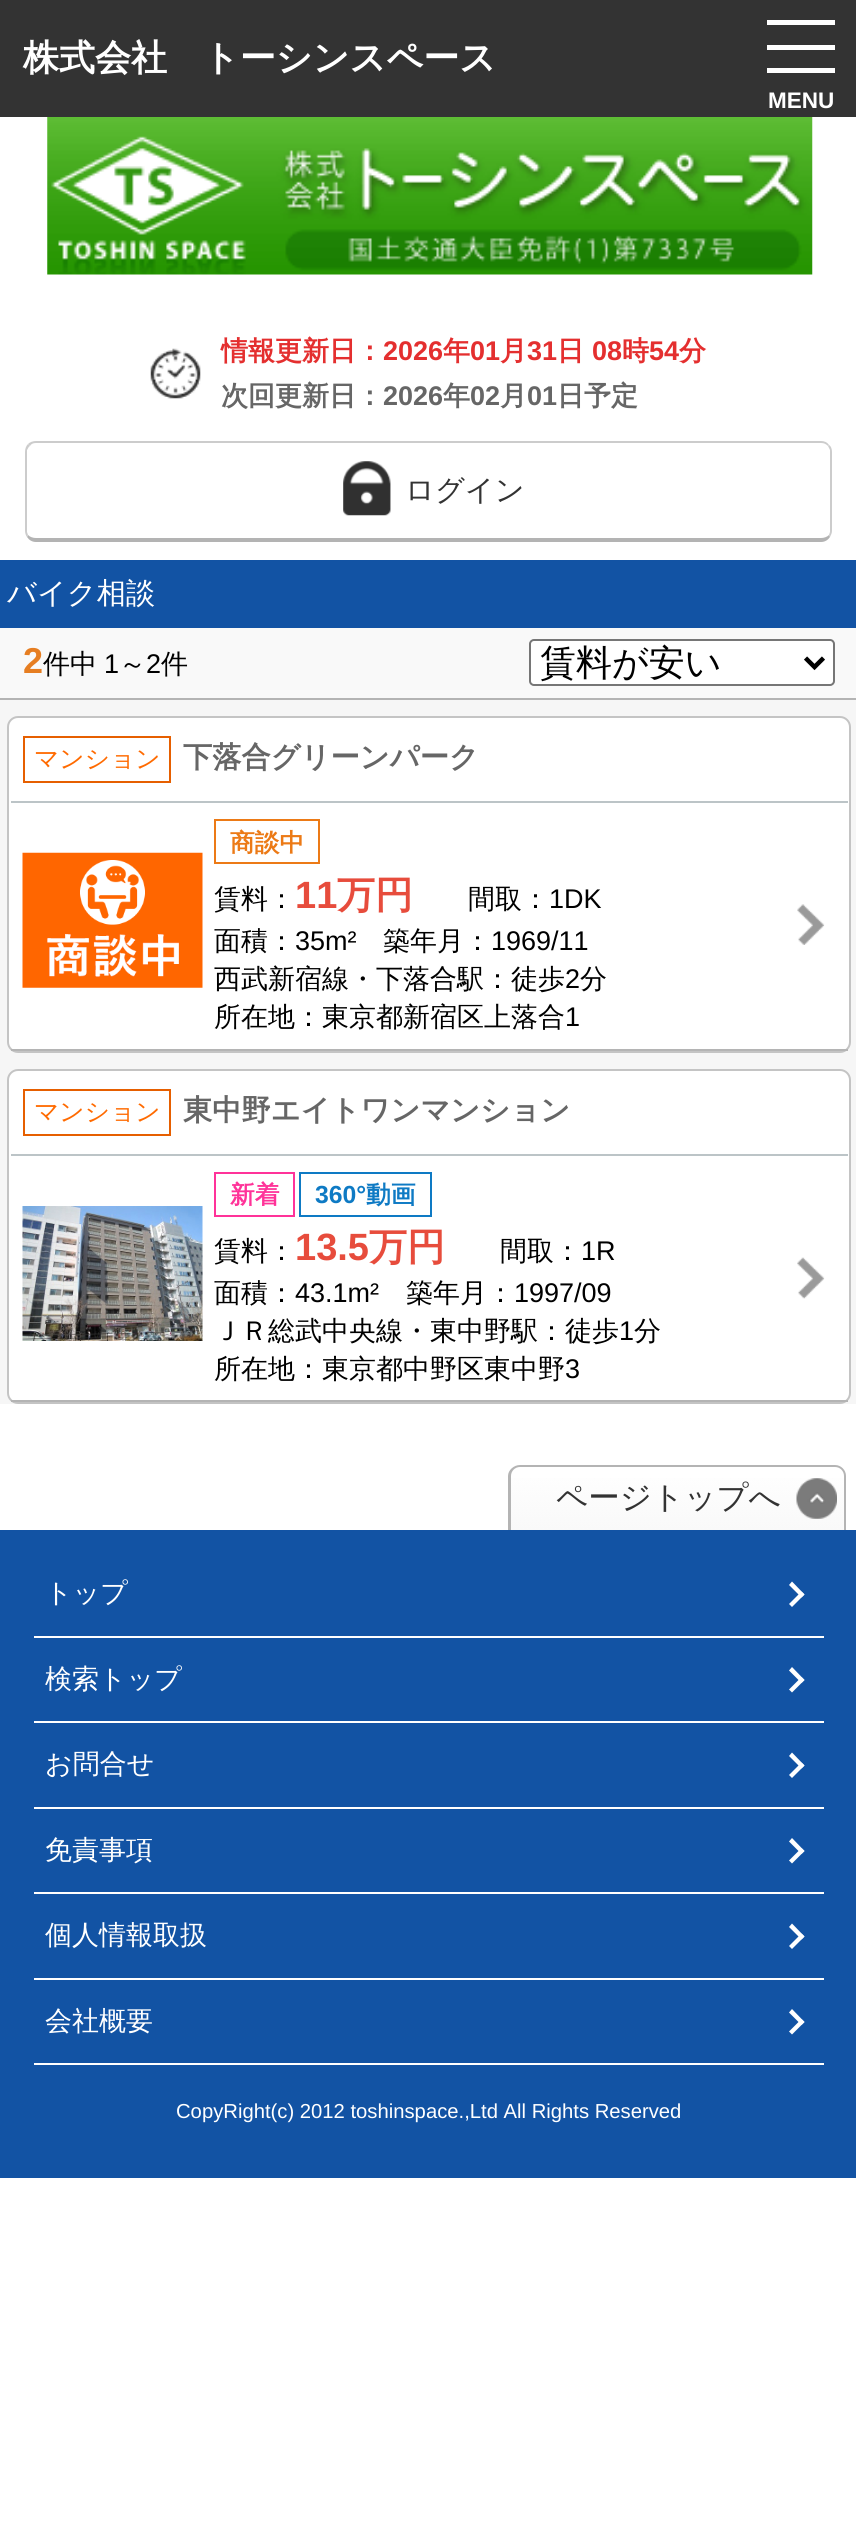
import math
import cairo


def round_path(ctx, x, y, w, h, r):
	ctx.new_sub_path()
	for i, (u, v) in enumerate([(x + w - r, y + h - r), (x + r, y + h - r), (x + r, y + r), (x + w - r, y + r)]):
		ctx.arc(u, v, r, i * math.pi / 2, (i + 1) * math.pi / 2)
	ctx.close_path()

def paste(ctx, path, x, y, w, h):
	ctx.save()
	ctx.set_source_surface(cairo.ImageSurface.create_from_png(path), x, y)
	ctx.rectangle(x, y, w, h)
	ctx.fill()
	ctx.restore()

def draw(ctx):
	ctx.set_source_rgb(1, 1, 1)
	ctx.paint()
	ctx.set_source_rgb(0.2, 0.2, 0.2)
	ctx.rectangle(0, 0, 856, 117)
	ctx.fill()
	ctx.select_font_face('WenQuanYi Zen Hei', cairo.FONT_SLANT_NORMAL, cairo.FONT_WEIGHT_BOLD)
	ctx.set_font_size(36)
	ctx.set_source_rgb(1, 1, 1)
	ctx.move_to(23, 70)
	ctx.show_text('株式会社　トーシンスペース')
	paste(ctx, 'media/1.png', 47, 117, 766, 158)
	paste(ctx, 'media/2.png', 150, 348, 51, 51)
	ctx.set_font_size(27)
	ctx.set_source_rgb(0.894, 0.184, 0.184)
	ctx.move_to(221, 360)
	ctx.show_text('情報更新日：')
	ctx.select_font_face('Liberation Sans', cairo.FONT_SLANT_NORMAL, cairo.FONT_WEIGHT_BOLD)
	ctx.move_to(383, 360)
	ctx.show_text('2026')
	ctx.select_font_face('WenQuanYi Zen Hei', cairo.FONT_SLANT_NORMAL, cairo.FONT_WEIGHT_BOLD)
	ctx.move_to(443, 360)
	ctx.show_text('年')
	ctx.select_font_face('Liberation Sans', cairo.FONT_SLANT_NORMAL, cairo.FONT_WEIGHT_BOLD)
	ctx.move_to(470, 360)
	ctx.show_text('01')
	ctx.select_font_face('WenQuanYi Zen Hei', cairo.FONT_SLANT_NORMAL, cairo.FONT_WEIGHT_BOLD)
	ctx.move_to(500, 360)
	ctx.show_text('月')
	ctx.select_font_face('Liberation Sans', cairo.FONT_SLANT_NORMAL, cairo.FONT_WEIGHT_BOLD)
	ctx.move_to(527, 360)
	ctx.show_text('31')
	ctx.select_font_face('WenQuanYi Zen Hei', cairo.FONT_SLANT_NORMAL, cairo.FONT_WEIGHT_BOLD)
	ctx.move_to(557, 360)
	ctx.show_text('日')
	ctx.select_font_face('Liberation Sans', cairo.FONT_SLANT_NORMAL, cairo.FONT_WEIGHT_BOLD)
	ctx.move_to(592, 360)
	ctx.show_text('08')
	ctx.select_font_face('WenQuanYi Zen Hei', cairo.FONT_SLANT_NORMAL, cairo.FONT_WEIGHT_BOLD)
	ctx.move_to(622, 360)
	ctx.show_text('時')
	ctx.select_font_face('Liberation Sans', cairo.FONT_SLANT_NORMAL, cairo.FONT_WEIGHT_BOLD)
	ctx.move_to(649, 360)
	ctx.show_text('54')
	ctx.select_font_face('WenQuanYi Zen Hei', cairo.FONT_SLANT_NORMAL, cairo.FONT_WEIGHT_BOLD)
	ctx.move_to(679, 360)
	ctx.show_text('分')
	ctx.set_source_rgb(0.4, 0.4, 0.4)
	ctx.move_to(221, 405)
	ctx.show_text('次回更新日：')
	ctx.select_font_face('Liberation Sans', cairo.FONT_SLANT_NORMAL, cairo.FONT_WEIGHT_BOLD)
	ctx.move_to(383, 405)
	ctx.show_text('2026')
	ctx.select_font_face('WenQuanYi Zen Hei', cairo.FONT_SLANT_NORMAL, cairo.FONT_WEIGHT_BOLD)
	ctx.move_to(443, 405)
	ctx.show_text('年')
	ctx.select_font_face('Liberation Sans', cairo.FONT_SLANT_NORMAL, cairo.FONT_WEIGHT_BOLD)
	ctx.move_to(470, 405)
	ctx.show_text('02')
	ctx.select_font_face('WenQuanYi Zen Hei', cairo.FONT_SLANT_NORMAL, cairo.FONT_WEIGHT_BOLD)
	ctx.move_to(500, 405)
	ctx.show_text('月')
	ctx.select_font_face('Liberation Sans', cairo.FONT_SLANT_NORMAL, cairo.FONT_WEIGHT_BOLD)
	ctx.move_to(527, 405)
	ctx.show_text('01')
	ctx.select_font_face('WenQuanYi Zen Hei', cairo.FONT_SLANT_NORMAL, cairo.FONT_WEIGHT_BOLD)
	ctx.move_to(557, 405)
	ctx.show_text('日予定')
	ctx.set_source_rgb(0.8, 0.8, 0.8)
	ctx.new_path()
	ctx.move_to(36, 441)
	ctx.curve_to(33, 441, 30, 442, 28, 444)
	ctx.line_to(30, 446)
	ctx.curve_to(31, 444, 33, 443, 36, 443)
	ctx.line_to(821, 443)
	ctx.curve_to(824, 443, 826, 444, 828, 446)
	ctx.line_to(829, 445)
	ctx.curve_to(827, 442, 824, 441, 821, 441)
	ctx.close_path()
	ctx.fill()
	ctx.new_path()
	ctx.move_to(829, 445)
	ctx.curve_to(831, 446, 832, 449, 832, 452)
	ctx.line_to(832, 531)
	ctx.curve_to(832, 533, 831, 535, 830, 537)
	ctx.line_to(829, 535)
	ctx.line_to(830, 532)
	ctx.line_to(830, 450)
	ctx.line_to(828, 446)
	ctx.close_path()
	ctx.fill()
	ctx.set_source_rgb(0.702, 0.702, 0.702)
	ctx.new_path()
	ctx.move_to(830, 537)
	ctx.curve_to(828, 540, 825, 542, 821, 542)
	ctx.line_to(36, 542)
	ctx.curve_to(32, 542, 29, 540, 27, 537)
	ctx.line_to(28, 535)
	ctx.curve_to(30, 537, 33, 538, 36, 538)
	ctx.line_to(821, 538)
	ctx.curve_to(824, 538, 827, 537, 829, 535)
	ctx.close_path()
	ctx.fill()
	ctx.set_source_rgb(0.8, 0.8, 0.8)
	ctx.new_path()
	ctx.move_to(28, 444)
	ctx.curve_to(26, 446, 25, 449, 25, 452)
	ctx.line_to(25, 531)
	ctx.curve_to(25, 533, 26, 536, 27, 537)
	ctx.line_to(28, 535)
	ctx.line_to(27, 532)
	ctx.line_to(27, 450)
	ctx.curve_to(28, 449, 28, 447, 30, 446)
	ctx.close_path()
	ctx.fill()
	paste(ctx, 'media/3.png', 343, 461, 48, 55)
	ctx.select_font_face('WenQuanYi Zen Hei Medium')
	ctx.set_font_size(29.25)
	ctx.set_source_rgb(0.2, 0.2, 0.2)
	ctx.move_to(405, 500)
	ctx.show_text('ログイン')
	ctx.set_source_rgb(1, 1, 1)
	ctx.rectangle(767, 20, 68, 5)
	ctx.rectangle(767, 45, 68, 5)
	ctx.rectangle(767, 68, 68, 5)
	ctx.fill()
	ctx.select_font_face('Liberation Sans', cairo.FONT_SLANT_NORMAL, cairo.FONT_WEIGHT_BOLD)
	ctx.set_font_size(22.5)
	ctx.move_to(768, 108)
	ctx.show_text('MENU')
	ctx.set_source_rgb(0.071, 0.325, 0.643)
	ctx.rectangle(0, 560, 856, 68)
	ctx.fill()
	ctx.select_font_face('WenQuanYi Zen Hei Medium')
	ctx.set_font_size(29.25)
	ctx.set_source_rgb(1, 1, 1)
	ctx.move_to(7, 603)
	ctx.show_text('バイク相談')
	ctx.set_source_rgb(0.976, 0.976, 0.976)
	ctx.rectangle(0, 628, 856, 70)
	ctx.fill()
	ctx.select_font_face('Liberation Sans', cairo.FONT_SLANT_NORMAL, cairo.FONT_WEIGHT_BOLD)
	ctx.set_font_size(36)
	ctx.set_source_rgb(0.902, 0.494, 0.133)
	ctx.move_to(23, 673)
	ctx.show_text('2')
	ctx.select_font_face('WenQuanYi Zen Hei Medium')
	ctx.set_font_size(27)
	ctx.set_source_rgb(0, 0, 0)
	ctx.move_to(43, 673)
	ctx.show_text('件中')
	ctx.select_font_face('Liberation Sans')
	ctx.move_to(104, 673)
	ctx.show_text('1')
	ctx.select_font_face('WenQuanYi Zen Hei Medium')
	ctx.move_to(119, 673)
	ctx.show_text('～')
	ctx.select_font_face('Liberation Sans')
	ctx.move_to(146, 673)
	ctx.show_text('2')
	ctx.select_font_face('WenQuanYi Zen Hei Medium')
	ctx.move_to(161, 673)
	ctx.show_text('件')
	ctx.set_source_rgb(1, 1, 1)
	round_path(ctx, 530, 640, 304, 45, 4)
	ctx.fill_preserve()
	ctx.set_source_rgb(0.463, 0.463, 0.463)
	ctx.stroke()
	ctx.new_path()
	ctx.move_to(805.5, 658)
	ctx.line_to(814.5, 667)
	ctx.line_to(823.5, 658)
	ctx.set_source_rgb(0, 0, 0)
	ctx.set_line_width(4.5)
	ctx.stroke()
	ctx.set_font_size(36)
	ctx.move_to(540, 675)
	ctx.show_text('賃料が安い')
	ctx.set_source_rgb(0.961, 0.961, 0.961)
	ctx.rectangle(0, 700, 856, 704)
	ctx.fill()
	ctx.set_source_rgb(0.706, 0.706, 0.706)
	ctx.rectangle(0, 698, 856, 2)
	ctx.fill()
	ctx.set_source_rgb(1, 1, 1)
	round_path(ctx, 8, 717, 842, 335, 10)
	ctx.fill_preserve()
	ctx.set_source_rgb(0.769, 0.769, 0.769)
	ctx.set_line_width(2)
	ctx.stroke()
	ctx.set_source_rgb(0.737, 0.769, 0.78)
	ctx.rectangle(11, 801, 837, 2)
	ctx.fill()
	ctx.rectangle(24, 737, 146, 45)
	ctx.set_source_rgb(0.902, 0.373, 0)
	ctx.stroke()
	ctx.set_font_size(24.75)
	ctx.set_source_rgb(1, 0.416, 0)
	ctx.move_to(34, 767)
	ctx.show_text('マンション')
	ctx.select_font_face('WenQuanYi Zen Hei', cairo.FONT_SLANT_NORMAL, cairo.FONT_WEIGHT_BOLD)
	ctx.set_font_size(29.25)
	ctx.set_source_rgb(0.4, 0.4, 0.4)
	ctx.move_to(183, 767)
	ctx.show_text('下落合グリーンパーク')
	ctx.set_source_rgb(0.706, 0.706, 0.706)
	ctx.rectangle(11, 1049, 837, 2)
	ctx.fill()
	paste(ctx, 'media/4.png', 22, 852, 181, 136)
	paste(ctx, 'media/5.png', 797, 904, 28, 41)
	ctx.rectangle(215, 820, 104, 43)
	ctx.set_source_rgb(0.922, 0.478, 0.086)
	ctx.stroke()
	ctx.set_font_size(24.75)
	ctx.move_to(230, 851)
	ctx.show_text('商談中')
	ctx.select_font_face('WenQuanYi Zen Hei Medium')
	ctx.set_font_size(27)
	ctx.set_source_rgb(0, 0, 0)
	ctx.move_to(214, 908)
	ctx.show_text('賃料：')
	ctx.select_font_face('Liberation Sans', cairo.FONT_SLANT_NORMAL, cairo.FONT_WEIGHT_BOLD)
	ctx.set_font_size(38)
	ctx.set_source_rgb(0.906, 0.298, 0.235)
	ctx.move_to(295, 908)
	ctx.show_text('11')
	ctx.select_font_face('WenQuanYi Zen Hei', cairo.FONT_SLANT_NORMAL, cairo.FONT_WEIGHT_BOLD)
	ctx.move_to(337, 908)
	ctx.show_text('万円')
	ctx.select_font_face('WenQuanYi Zen Hei Medium')
	ctx.set_font_size(27)
	ctx.set_source_rgb(0, 0, 0)
	ctx.move_to(468, 908)
	ctx.show_text('間取：')
	ctx.select_font_face('Liberation Sans')
	ctx.move_to(549, 908)
	ctx.show_text('1DK')
	ctx.select_font_face('WenQuanYi Zen Hei Medium')
	ctx.move_to(214, 950)
	ctx.show_text('面積：')
	ctx.select_font_face('Liberation Sans')
	ctx.move_to(295, 950)
	ctx.show_text('35m²')
	ctx.select_font_face('WenQuanYi Zen Hei Medium')
	ctx.move_to(383, 950)
	ctx.show_text('築年月：')
	ctx.select_font_face('Liberation Sans')
	ctx.move_to(491, 950)
	ctx.show_text('1969/11')
	ctx.select_font_face('WenQuanYi Zen Hei Medium')
	ctx.move_to(214, 988)
	ctx.show_text('西武新宿線・下落合駅：徒歩')
	ctx.select_font_face('Liberation Sans')
	ctx.move_to(565, 988)
	ctx.show_text('2')
	ctx.select_font_face('WenQuanYi Zen Hei Medium')
	ctx.move_to(580, 988)
	ctx.show_text('分')
	ctx.move_to(214, 1026)
	ctx.show_text('所在地：東京都新宿区上落合')
	ctx.select_font_face('Liberation Sans')
	ctx.move_to(565, 1026)
	ctx.show_text('1')
	ctx.set_source_rgb(1, 1, 1)
	round_path(ctx, 8, 1070, 842, 333, 10)
	ctx.fill_preserve()
	ctx.set_source_rgb(0.769, 0.769, 0.769)
	ctx.stroke()
	ctx.set_source_rgb(0.737, 0.769, 0.78)
	ctx.rectangle(11, 1154, 837, 2)
	ctx.fill()
	ctx.rectangle(24, 1090, 146, 45)
	ctx.set_source_rgb(0.902, 0.373, 0)
	ctx.stroke()
	ctx.select_font_face('WenQuanYi Zen Hei Medium')
	ctx.set_font_size(24.75)
	ctx.set_source_rgb(1, 0.416, 0)
	ctx.move_to(34, 1120)
	ctx.show_text('マンション')
	ctx.select_font_face('WenQuanYi Zen Hei', cairo.FONT_SLANT_NORMAL, cairo.FONT_WEIGHT_BOLD)
	ctx.set_font_size(29.25)
	ctx.set_source_rgb(0.4, 0.4, 0.4)
	ctx.move_to(183, 1120)
	ctx.show_text('東中野エイトワンマンション')
	ctx.set_source_rgb(0.706, 0.706, 0.706)
	ctx.rectangle(11, 1400, 837, 2)
	ctx.fill()
	paste(ctx, 'media/6.png', 22, 1206, 181, 135)
	paste(ctx, 'media/7.png', 797, 1257, 28, 42)
	ctx.rectangle(215, 1173, 79, 43)
	ctx.set_source_rgb(1, 0.2, 0.6)
	ctx.stroke()
	ctx.set_font_size(24.75)
	ctx.move_to(230, 1203)
	ctx.show_text('新着')
	ctx.rectangle(300, 1173, 131, 43)
	ctx.set_source_rgb(0.055, 0.478, 0.769)
	ctx.stroke()
	ctx.select_font_face('Liberation Sans', cairo.FONT_SLANT_NORMAL, cairo.FONT_WEIGHT_BOLD)
	ctx.move_to(315, 1203)
	ctx.show_text('360°')
	ctx.select_font_face('WenQuanYi Zen Hei', cairo.FONT_SLANT_NORMAL, cairo.FONT_WEIGHT_BOLD)
	ctx.move_to(366, 1203)
	ctx.show_text('動画')
	ctx.select_font_face('WenQuanYi Zen Hei Medium')
	ctx.set_font_size(27)
	ctx.set_source_rgb(0, 0, 0)
	ctx.move_to(214, 1260)
	ctx.show_text('賃料：')
	ctx.select_font_face('Liberation Sans', cairo.FONT_SLANT_NORMAL, cairo.FONT_WEIGHT_BOLD)
	ctx.set_font_size(38)
	ctx.set_source_rgb(0.906, 0.298, 0.235)
	ctx.move_to(295, 1260)
	ctx.show_text('13.5')
	ctx.select_font_face('WenQuanYi Zen Hei', cairo.FONT_SLANT_NORMAL, cairo.FONT_WEIGHT_BOLD)
	ctx.move_to(369, 1260)
	ctx.show_text('万円')
	ctx.select_font_face('WenQuanYi Zen Hei Medium')
	ctx.set_font_size(27)
	ctx.set_source_rgb(0, 0, 0)
	ctx.move_to(500, 1260)
	ctx.show_text('間取：')
	ctx.select_font_face('Liberation Sans')
	ctx.move_to(581, 1260)
	ctx.show_text('1R')
	ctx.select_font_face('WenQuanYi Zen Hei Medium')
	ctx.move_to(214, 1302)
	ctx.show_text('面積：')
	ctx.select_font_face('Liberation Sans')
	ctx.move_to(295, 1302)
	ctx.show_text('43.1m²')
	ctx.select_font_face('WenQuanYi Zen Hei Medium')
	ctx.move_to(406, 1302)
	ctx.show_text('築年月：')
	ctx.select_font_face('Liberation Sans')
	ctx.move_to(514, 1302)
	ctx.show_text('1997/09')
	ctx.select_font_face('WenQuanYi Zen Hei Medium')
	ctx.move_to(214, 1340)
	ctx.show_text('ＪＲ総武中央線・東中野駅：徒歩')
	ctx.select_font_face('Liberation Sans')
	ctx.move_to(619, 1340)
	ctx.show_text('1')
	ctx.select_font_face('WenQuanYi Zen Hei Medium')
	ctx.move_to(634, 1340)
	ctx.show_text('分')
	ctx.move_to(214, 1378)
	ctx.show_text('所在地：東京都中野区東中野')
	ctx.select_font_face('Liberation Sans')
	ctx.move_to(565, 1378)
	ctx.show_text('3')
	paste(ctx, 'media/8.png', 511, 1478, 333, 52)
	ctx.set_source_rgb(0.706, 0.706, 0.706)
	ctx.set_fill_rule(cairo.FILL_RULE_EVEN_ODD)
	ctx.new_path()
	ctx.move_to(520, 1465)
	ctx.line_to(835, 1465)
	ctx.curve_to(841, 1465, 846, 1470, 846, 1476)
	ctx.line_to(846, 1530)
	ctx.line_to(508, 1530)
	ctx.line_to(508, 1476)
	ctx.curve_to(508, 1470, 514, 1465, 520, 1465)
	ctx.close_path()
	ctx.move_to(520, 1467)
	ctx.line_to(835, 1467)
	ctx.curve_to(840, 1467, 844, 1471, 844, 1476)
	ctx.line_to(844, 1530)
	ctx.line_to(511, 1530)
	ctx.line_to(511, 1476)
	ctx.curve_to(511, 1471, 515, 1467, 520, 1467)
	ctx.close_path()
	ctx.fill()
	ctx.select_font_face('WenQuanYi Zen Hei Medium')
	ctx.set_font_size(31.5)
	ctx.set_source_rgb(0.2, 0.2, 0.2)
	ctx.move_to(556, 1508)
	ctx.show_text('ページトップへ')
	ctx.set_source_rgb(0.071, 0.325, 0.643)
	ctx.rectangle(0, 1530, 856, 648)
	ctx.fill()
	ctx.set_source_rgb(1, 1, 1)
	ctx.rectangle(34, 1636, 790, 2)
	ctx.fill()
	ctx.set_font_size(27)
	ctx.move_to(45, 1602)
	ctx.show_text('トップ')
	ctx.set_fill_rule(cairo.FILL_RULE_WINDING)
	ctx.new_path()
	ctx.move_to(792, 1581.5)
	ctx.line_to(804.5, 1594.5)
	ctx.line_to(801.5, 1597.5)
	ctx.line_to(789, 1585)
	ctx.close_path()
	ctx.fill()
	ctx.new_path()
	ctx.move_to(801.5, 1591.5)
	ctx.line_to(804.5, 1594.5)
	ctx.line_to(792, 1607)
	ctx.line_to(789, 1604)
	ctx.close_path()
	ctx.fill()
	ctx.rectangle(34, 1721, 790, 2)
	ctx.fill()
	ctx.move_to(45, 1688)
	ctx.show_text('検索トップ')
	ctx.new_path()
	ctx.move_to(792, 1667)
	ctx.line_to(804.5, 1680)
	ctx.line_to(801.5, 1683)
	ctx.line_to(789, 1670.5)
	ctx.close_path()
	ctx.fill()
	ctx.new_path()
	ctx.move_to(801.5, 1677)
	ctx.line_to(804.5, 1680)
	ctx.line_to(792, 1692.5)
	ctx.line_to(789, 1689.5)
	ctx.close_path()
	ctx.fill()
	ctx.rectangle(34, 1807, 790, 2)
	ctx.fill()
	ctx.move_to(45, 1773)
	ctx.show_text('お問合せ')
	ctx.new_path()
	ctx.move_to(792, 1752.5)
	ctx.line_to(804.5, 1765.5)
	ctx.line_to(801.5, 1768.5)
	ctx.line_to(789, 1756)
	ctx.close_path()
	ctx.fill()
	ctx.new_path()
	ctx.move_to(801.5, 1762.5)
	ctx.line_to(804.5, 1765.5)
	ctx.line_to(792, 1778)
	ctx.line_to(789, 1775)
	ctx.close_path()
	ctx.fill()
	ctx.rectangle(34, 1892, 790, 2)
	ctx.fill()
	ctx.move_to(45, 1859)
	ctx.show_text('免責事項')
	ctx.new_path()
	ctx.move_to(792, 1838)
	ctx.line_to(804.5, 1851)
	ctx.line_to(801.5, 1854)
	ctx.line_to(789, 1841.5)
	ctx.close_path()
	ctx.fill()
	ctx.new_path()
	ctx.move_to(801.5, 1848)
	ctx.line_to(804.5, 1851)
	ctx.line_to(792, 1863.5)
	ctx.line_to(789, 1860.5)
	ctx.close_path()
	ctx.fill()
	ctx.rectangle(34, 1978, 790, 2)
	ctx.fill()
	ctx.move_to(45, 1944)
	ctx.show_text('個人情報取扱')
	ctx.new_path()
	ctx.move_to(792, 1923.5)
	ctx.line_to(804.5, 1936.5)
	ctx.line_to(801.5, 1939.5)
	ctx.line_to(789, 1927)
	ctx.close_path()
	ctx.fill()
	ctx.new_path()
	ctx.move_to(801.5, 1933.5)
	ctx.line_to(804.5, 1936.5)
	ctx.line_to(792, 1949)
	ctx.line_to(789, 1946)
	ctx.close_path()
	ctx.fill()
	ctx.rectangle(34, 2063, 790, 2)
	ctx.fill()
	ctx.move_to(45, 2030)
	ctx.show_text('会社概要')
	ctx.new_path()
	ctx.move_to(792, 2009)
	ctx.line_to(804.5, 2022)
	ctx.line_to(801.5, 2025)
	ctx.line_to(789, 2012.5)
	ctx.close_path()
	ctx.fill()
	ctx.new_path()
	ctx.move_to(801.5, 2019)
	ctx.line_to(804.5, 2022)
	ctx.line_to(792, 2034.5)
	ctx.line_to(789, 2031.5)
	ctx.close_path()
	ctx.fill()
	ctx.select_font_face('Liberation Sans')
	ctx.set_font_size(20.25)
	ctx.move_to(176, 2118)
	ctx.show_text('CopyRight(c) 2012 toshinspace.,Ltd All Rights Reserved')


surface = cairo.ImageSurface(cairo.FORMAT_RGB24, 856, 2535)
ctx = cairo.Context(surface)
options = cairo.FontOptions()
options.set_hint_metrics(cairo.HINT_METRICS_OFF)
options.set_hint_style(cairo.HINT_STYLE_NONE)
ctx.set_font_options(options)
ctx.set_miter_limit(4)
draw(ctx)
surface.write_to_png('image.png')
